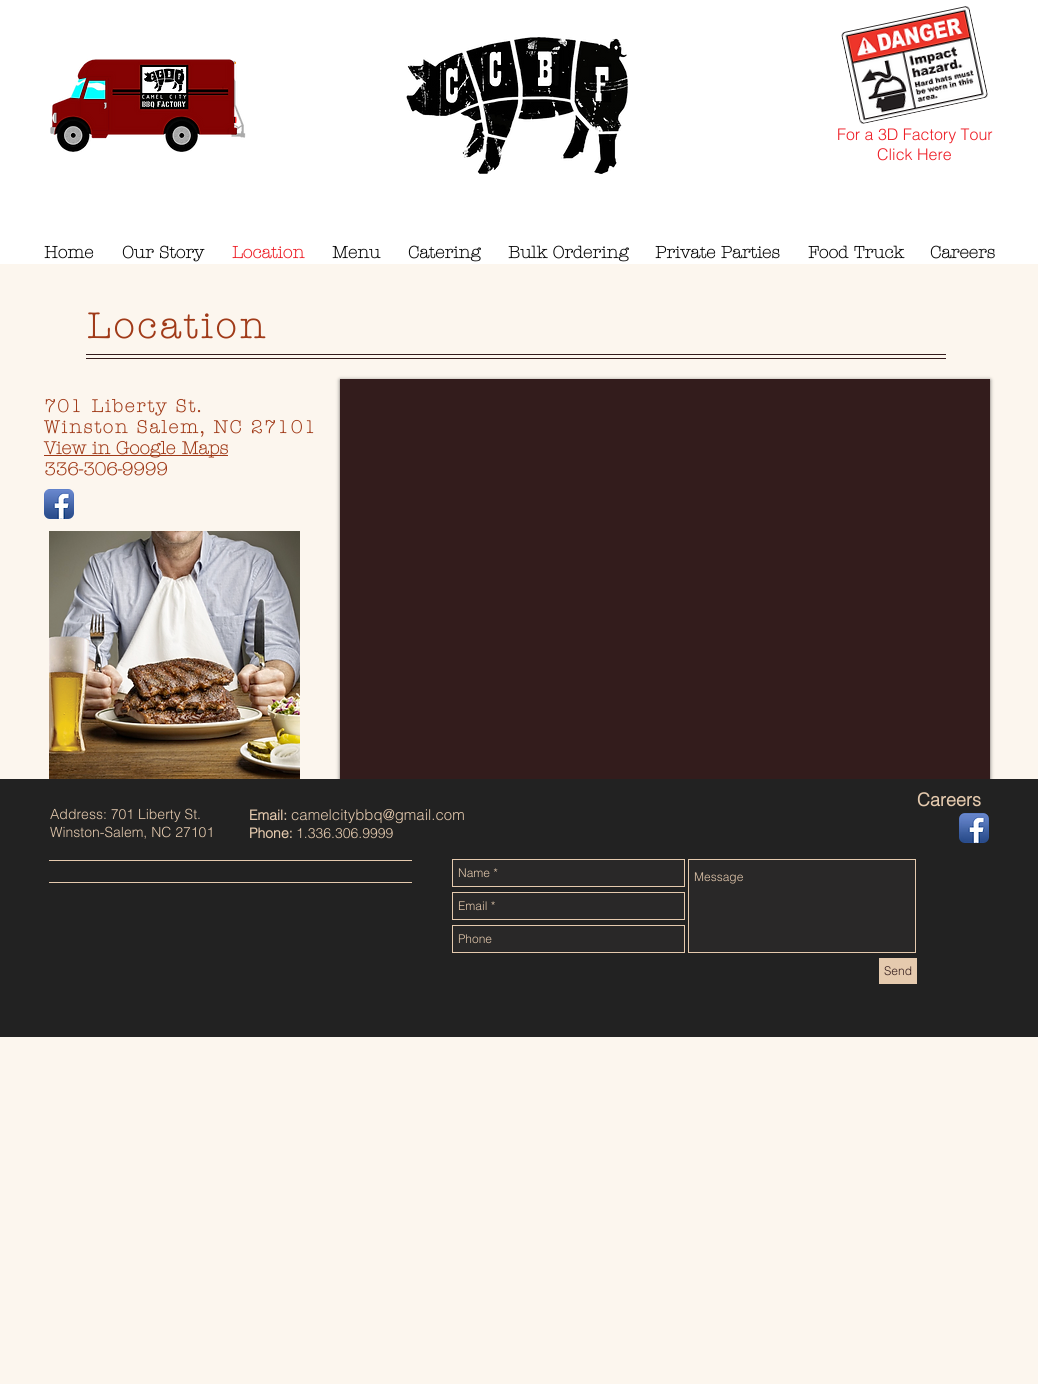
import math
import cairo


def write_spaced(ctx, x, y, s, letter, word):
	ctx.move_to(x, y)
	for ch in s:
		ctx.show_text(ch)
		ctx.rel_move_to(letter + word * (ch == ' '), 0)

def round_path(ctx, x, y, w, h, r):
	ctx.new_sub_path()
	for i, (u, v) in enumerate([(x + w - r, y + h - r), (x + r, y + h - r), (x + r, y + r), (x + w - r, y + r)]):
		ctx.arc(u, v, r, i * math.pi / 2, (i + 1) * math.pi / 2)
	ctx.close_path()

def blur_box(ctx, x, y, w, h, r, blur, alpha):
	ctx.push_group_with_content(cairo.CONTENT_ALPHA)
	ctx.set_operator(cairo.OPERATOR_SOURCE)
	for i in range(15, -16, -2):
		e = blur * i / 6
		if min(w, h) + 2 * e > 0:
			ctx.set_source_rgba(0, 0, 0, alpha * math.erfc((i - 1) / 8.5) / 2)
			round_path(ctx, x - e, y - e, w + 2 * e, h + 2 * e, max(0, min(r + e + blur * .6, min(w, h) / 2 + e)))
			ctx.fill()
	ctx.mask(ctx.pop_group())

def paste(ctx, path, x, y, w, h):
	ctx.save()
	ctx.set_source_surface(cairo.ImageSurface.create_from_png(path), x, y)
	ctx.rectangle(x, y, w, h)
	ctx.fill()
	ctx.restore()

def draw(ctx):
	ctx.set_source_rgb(0.988, 0.961, 0.933)
	ctx.paint()
	ctx.set_source_rgb(1, 1, 1)
	ctx.rectangle(0, 0, 1038, 264)
	ctx.fill()
	paste(ctx, 'media/1.png', 50, 59, 196, 93)
	paste(ctx, 'media/2.png', 406, 37, 222, 137)
	paste(ctx, 'media/3.png', 841, 6, 147, 118)
	ctx.select_font_face('helvetica Light')
	ctx.set_font_size(16)
	ctx.set_source_rgb(0.929, 0.11, 0.141)
	ctx.move_to(837, 140)
	ctx.show_text('For a 3D Factory Tour')
	ctx.move_to(877, 160)
	ctx.show_text('Click Here')
	ctx.select_font_face('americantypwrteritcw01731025', cairo.FONT_SLANT_NORMAL, cairo.FONT_WEIGHT_BOLD)
	ctx.set_font_size(17)
	ctx.set_source_rgb(0, 0, 0)
	ctx.move_to(44, 258)
	ctx.show_text('Home')
	ctx.move_to(122, 258)
	ctx.show_text('Our Story')
	ctx.set_source_rgb(0.929, 0.11, 0.141)
	ctx.move_to(232, 258)
	ctx.show_text('Location')
	ctx.set_source_rgb(0, 0, 0)
	for x, y, s in [
		(332, 258, 'Menu'),
		(408, 258, 'Catering'),
		(508, 258, 'Bulk Ordering'),
		(655, 258, 'Private Parties'),
		(808, 258, 'Food Truck'),
		(930, 258, 'Careers'),
	]:
		ctx.move_to(x, y)
		ctx.show_text(s)
	ctx.set_font_size(36)
	ctx.set_source_rgb(0.627, 0.227, 0.094)
	write_spaced(ctx, 87, 338, 'Location', 3.5, 0)
	ctx.set_source_rgb(0.2, 0.11, 0.11)
	ctx.rectangle(86, 354, 860, 1)
	ctx.fill()
	ctx.rectangle(86, 358, 860, 1)
	ctx.fill()
	ctx.set_font_size(18)
	ctx.set_source_rgb(0.627, 0.227, 0.094)
	write_spaced(ctx, 44, 412, '701 Liberty St.', 1.8, 0)
	write_spaced(ctx, 44, 433, 'Winston Salem, NC 27101', 1.8, 0)
	ctx.rectangle(44, 455, 184, 1)
	ctx.fill()
	ctx.move_to(44, 454)
	ctx.show_text('View in Google Maps')
	ctx.move_to(44, 475)
	ctx.show_text('336-306-9999')
	ctx.set_source_rgb(0, 0, 0)
	blur_box(ctx, 340, 380, 650, 400, 0, 2, 0.6)
	ctx.set_source_rgb(0.2, 0.11, 0.11)
	ctx.rectangle(340, 379, 650, 400)
	ctx.fill()
	paste(ctx, 'media/4.png', 44, 489, 30, 30)
	paste(ctx, 'media/5.png', 49, 531, 251, 248)
	ctx.set_source_rgb(0.133, 0.133, 0.133)
	ctx.rectangle(0, 779, 1038, 258)
	ctx.fill()
	ctx.select_font_face('helvetica', cairo.FONT_SLANT_NORMAL, cairo.FONT_WEIGHT_BOLD)
	ctx.set_source_rgb(0.898, 0.792, 0.682)
	ctx.move_to(917, 806)
	ctx.show_text('Careers')
	ctx.select_font_face('helvetica Light')
	ctx.set_font_size(14)
	ctx.move_to(50, 819)
	ctx.show_text('Address: 701 Liberty St.')
	ctx.move_to(50, 837)
	ctx.show_text('Winston-Salem, NC 27101')
	ctx.select_font_face('helvetica', cairo.FONT_SLANT_NORMAL, cairo.FONT_WEIGHT_BOLD)
	ctx.move_to(249, 820)
	ctx.show_text('Email:')
	ctx.select_font_face('helvetica Light')
	ctx.set_font_size(15)
	ctx.move_to(291, 820)
	ctx.show_text('camelcitybbq@gmail.com')
	ctx.select_font_face('helvetica', cairo.FONT_SLANT_NORMAL, cairo.FONT_WEIGHT_BOLD)
	ctx.set_font_size(14)
	ctx.move_to(249, 838)
	ctx.show_text('Phone:')
	ctx.select_font_face('helvetica Light')
	ctx.move_to(296, 838)
	ctx.show_text('1.336.306.9999')
	paste(ctx, 'media/6.png', 959, 813, 30, 30)
	ctx.rectangle(49, 860, 363, 1)
	ctx.fill()
	ctx.rectangle(49, 882, 363, 1)
	ctx.fill()
	ctx.set_source_rgb(0.161, 0.157, 0.157)
	ctx.rectangle(452.5, 859.5, 232, 27)
	ctx.fill_preserve()
	ctx.set_source_rgb(0.898, 0.792, 0.682)
	ctx.set_line_width(1)
	ctx.stroke()
	ctx.set_font_size(12)
	ctx.move_to(458, 877)
	ctx.show_text('Name *')
	ctx.set_source_rgb(0.161, 0.157, 0.157)
	ctx.rectangle(688.5, 859.5, 227, 93)
	ctx.fill_preserve()
	ctx.set_source_rgb(0.898, 0.792, 0.682)
	ctx.stroke()
	ctx.move_to(694, 881)
	ctx.show_text('Message')
	ctx.set_source_rgb(0.161, 0.157, 0.157)
	ctx.rectangle(452.5, 892.5, 232, 27)
	ctx.fill_preserve()
	ctx.set_source_rgb(0.898, 0.792, 0.682)
	ctx.stroke()
	ctx.move_to(458, 910)
	ctx.show_text('Email *')
	ctx.set_source_rgb(0.161, 0.157, 0.157)
	ctx.rectangle(452.5, 925.5, 232, 27)
	ctx.fill_preserve()
	ctx.set_source_rgb(0.898, 0.792, 0.682)
	ctx.stroke()
	ctx.move_to(458, 943)
	ctx.show_text('Phone')
	ctx.rectangle(879, 958, 38, 26)
	ctx.fill()
	ctx.set_source_rgb(0.2, 0.11, 0.11)
	ctx.move_to(884, 975)
	ctx.show_text('Send')


surface = cairo.ImageSurface(cairo.FORMAT_RGB24, 1038, 1384)
ctx = cairo.Context(surface)
options = cairo.FontOptions()
options.set_hint_metrics(cairo.HINT_METRICS_OFF)
options.set_hint_style(cairo.HINT_STYLE_NONE)
ctx.set_font_options(options)
ctx.set_miter_limit(4)
draw(ctx)
surface.write_to_png('image.png')
